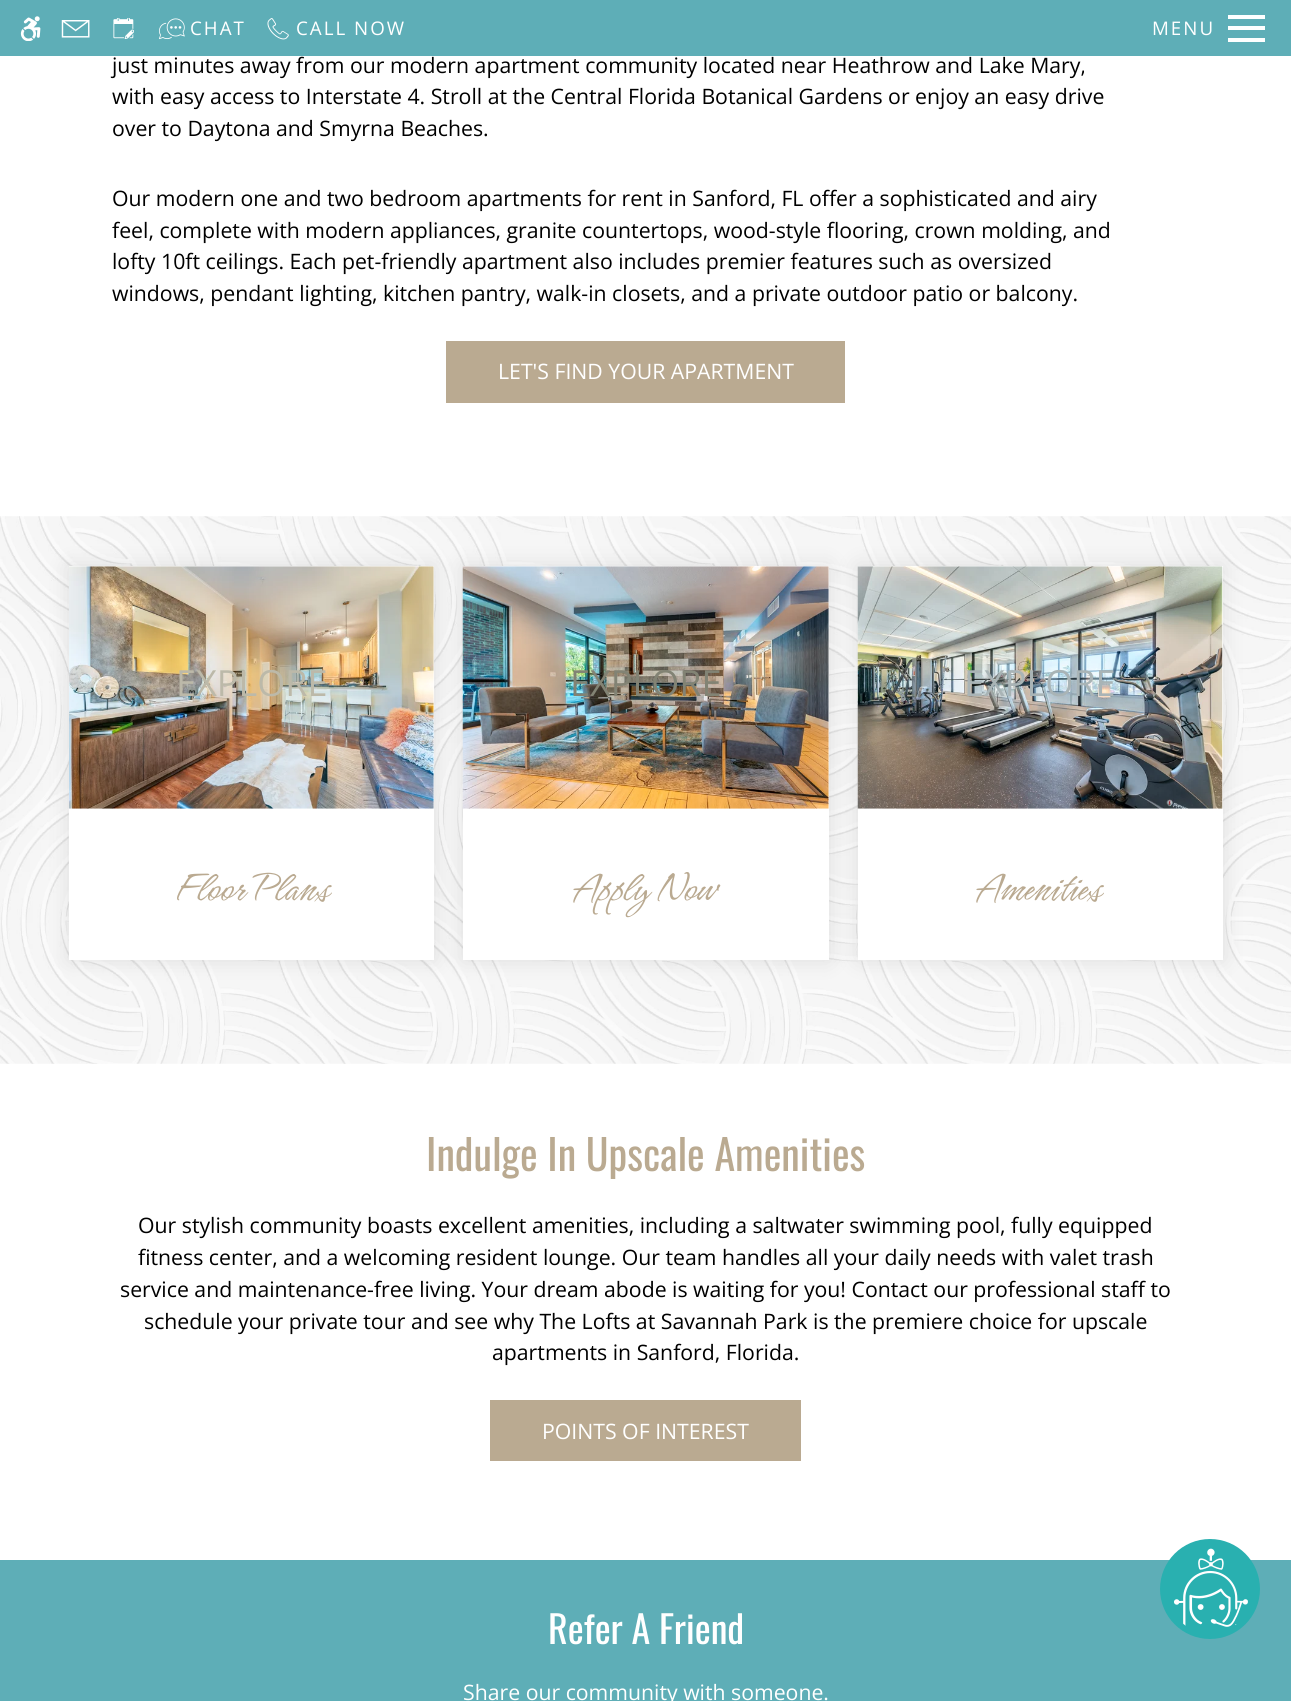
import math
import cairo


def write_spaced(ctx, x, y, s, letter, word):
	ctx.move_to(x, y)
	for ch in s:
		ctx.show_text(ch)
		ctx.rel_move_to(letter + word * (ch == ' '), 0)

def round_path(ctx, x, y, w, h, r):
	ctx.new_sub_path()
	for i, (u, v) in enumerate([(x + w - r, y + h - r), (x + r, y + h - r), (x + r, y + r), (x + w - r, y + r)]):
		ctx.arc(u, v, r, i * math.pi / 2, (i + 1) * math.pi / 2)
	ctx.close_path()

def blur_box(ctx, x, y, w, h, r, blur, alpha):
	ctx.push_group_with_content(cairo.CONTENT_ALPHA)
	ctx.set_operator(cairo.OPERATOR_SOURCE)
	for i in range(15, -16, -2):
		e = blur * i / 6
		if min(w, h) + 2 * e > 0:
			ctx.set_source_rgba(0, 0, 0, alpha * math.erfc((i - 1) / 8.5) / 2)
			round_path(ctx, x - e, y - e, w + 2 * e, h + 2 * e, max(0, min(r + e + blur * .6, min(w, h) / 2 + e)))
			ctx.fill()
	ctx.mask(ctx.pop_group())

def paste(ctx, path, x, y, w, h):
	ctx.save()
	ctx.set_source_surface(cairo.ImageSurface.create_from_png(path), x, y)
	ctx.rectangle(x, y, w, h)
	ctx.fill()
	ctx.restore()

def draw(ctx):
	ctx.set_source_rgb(1, 1, 1)
	ctx.paint()
	ctx.set_source_rgb(0.369, 0.682, 0.718)
	ctx.rectangle(0, 0, 1291, 56)
	ctx.fill()
	paste(ctx, 'media/1.png', 20, 16, 21, 25)
	paste(ctx, 'media/2.png', 61, 20, 29, 18)
	paste(ctx, 'media/3.png', 113, 18, 21, 21)
	paste(ctx, 'media/4.png', 159, 18, 26, 22)
	ctx.select_font_face('Open Sans')
	ctx.set_font_size(18.75)
	ctx.set_source_rgb(1, 1, 1)
	write_spaced(ctx, 190, 35, 'CHAT', 2, 0)
	paste(ctx, 'media/5.png', 267, 18, 22, 22)
	write_spaced(ctx, 296, 35, 'CALL NOW', 2, 0)
	write_spaced(ctx, 1152, 35, 'MENU', 2, 0)
	ctx.rectangle(1228, 15, 37, 4)
	ctx.rectangle(1228, 26, 37, 4)
	ctx.rectangle(1228, 38, 37, 4)
	ctx.fill()
	ctx.set_font_size(21.25)
	ctx.set_source_rgb(0, 0, 0)
	for x, y, s in [
		(112, 73, 'just minutes away from our modern apartment community located near Heathrow and Lake Mary,'),
		(112, 104, 'with easy access to Interstate 4. Stroll at the Central Florida Botanical Gardens or enjoy an easy drive'),
		(112, 136, 'over to Daytona and Smyrna Beaches.'),
		(112, 206, 'Our modern one and two bedroom apartments for rent in Sanford, FL offer a sophisticated and airy'),
		(112, 238, 'feel, complete with modern appliances, granite countertops, wood-style flooring, crown molding, and'),
		(112, 269, 'lofty 10ft ceilings. Each pet-friendly apartment also includes premier features such as oversized'),
		(112, 301, 'windows, pendant lighting, kitchen pantry, walk-in closets, and a private outdoor patio or balcony.'),
	]:
		ctx.move_to(x, y)
		ctx.show_text(s)
	ctx.set_source_rgb(0.729, 0.667, 0.569)
	ctx.rectangle(446, 341, 399, 62)
	ctx.fill()
	ctx.set_source_rgb(1, 1, 1)
	ctx.move_to(498, 379)
	ctx.show_text('LET\'S FIND YOUR APARTMENT')
	paste(ctx, 'media/6.png', 0, 516, 1291, 548)
	ctx.set_source_rgb(0, 0, 0)
	blur_box(ctx, 69, 566, 365, 394, 0, 11, 0.1)
	ctx.set_source_rgb(1, 1, 1)
	ctx.rectangle(69, 566, 365, 394)
	ctx.fill()
	paste(ctx, 'media/7.png', 69, 566, 365, 243)
	ctx.set_font_size(36)
	ctx.set_source_rgb(0.737, 0.725, 0.663)
	ctx.move_to(176, 696)
	ctx.show_text('EXPLORE')
	ctx.select_font_face('Hurricane')
	ctx.set_font_size(45)
	ctx.set_source_rgb(0.729, 0.667, 0.569)
	ctx.move_to(174, 900)
	ctx.show_text('Floor Plans')
	ctx.set_source_rgb(0, 0, 0)
	blur_box(ctx, 463, 566, 366, 394, 0, 11, 0.1)
	ctx.set_source_rgb(1, 1, 1)
	ctx.rectangle(463, 566, 366, 394)
	ctx.fill()
	paste(ctx, 'media/8.png', 462, 566, 367, 243)
	ctx.select_font_face('Open Sans')
	ctx.set_font_size(36)
	ctx.set_source_rgb(0.51, 0.514, 0.455)
	ctx.move_to(570, 696)
	ctx.show_text('EXPLORE')
	ctx.select_font_face('Hurricane')
	ctx.set_font_size(45)
	ctx.set_source_rgb(0.729, 0.667, 0.569)
	ctx.move_to(575, 900)
	ctx.show_text('Apply Now')
	ctx.set_source_rgb(0, 0, 0)
	blur_box(ctx, 858, 566, 365, 394, 0, 11, 0.1)
	ctx.set_source_rgb(1, 1, 1)
	ctx.rectangle(858, 566, 365, 394)
	ctx.fill()
	paste(ctx, 'media/9.png', 857, 566, 366, 243)
	ctx.select_font_face('Open Sans')
	ctx.set_font_size(36)
	ctx.set_source_rgb(0.663, 0.706, 0.714)
	ctx.move_to(964, 696)
	ctx.show_text('EXPLORE')
	ctx.select_font_face('Hurricane')
	ctx.set_font_size(45)
	ctx.set_source_rgb(0.729, 0.667, 0.569)
	ctx.move_to(978, 900)
	ctx.show_text('Amenities')
	ctx.select_font_face('Oswald')
	ctx.set_font_size(42)
	ctx.move_to(426, 1171)
	ctx.show_text('Indulge In Upscale Amenities')
	ctx.select_font_face('Open Sans')
	ctx.set_font_size(21.25)
	ctx.set_source_rgb(0, 0, 0)
	for x, y, s in [
		(138, 1233, 'Our stylish community boasts excellent amenities, including a saltwater swimming pool, fully equipped'),
		(138, 1265, 'fitness center, and a welcoming resident lounge. Our team handles all your daily needs with valet trash'),
		(120, 1297, 'service and maintenance-free living. Your dream abode is waiting for you! Contact our professional staff to'),
		(144, 1329, 'schedule your private tour and see why The Lofts at Savannah Park is the premiere choice for upscale'),
		(492, 1360, 'apartments in Sanford, Florida.'),
	]:
		ctx.move_to(x, y)
		ctx.show_text(s)
	ctx.set_source_rgb(0.729, 0.667, 0.569)
	ctx.rectangle(490, 1400, 311, 61)
	ctx.fill()
	ctx.set_source_rgb(1, 1, 1)
	ctx.move_to(542, 1439)
	ctx.show_text('POINTS OF INTEREST')
	ctx.set_source_rgb(0.369, 0.682, 0.718)
	ctx.rectangle(0, 1560, 1291, 141)
	ctx.fill()
	ctx.select_font_face('Oswald')
	ctx.set_font_size(38)
	ctx.set_source_rgb(1, 1, 1)
	ctx.move_to(548, 1644)
	ctx.show_text('Refer A Friend')
	ctx.select_font_face('Open Sans')
	ctx.set_font_size(21.25)
	ctx.move_to(463, 1700)
	ctx.show_text('Share our community with someone.')
	ctx.set_source_rgb(0.161, 0.69, 0.69)
	ctx.new_path()
	ctx.arc(1210, 1589, 50, 0, 2 * math.pi)
	ctx.fill()
	paste(ctx, 'media/10.png', 1174, 1548, 74, 79)


surface = cairo.ImageSurface(cairo.FORMAT_RGB24, 1291, 1701)
ctx = cairo.Context(surface)
options = cairo.FontOptions()
options.set_hint_metrics(cairo.HINT_METRICS_OFF)
options.set_hint_style(cairo.HINT_STYLE_NONE)
ctx.set_font_options(options)
ctx.set_miter_limit(4)
draw(ctx)
surface.write_to_png('image.png')
